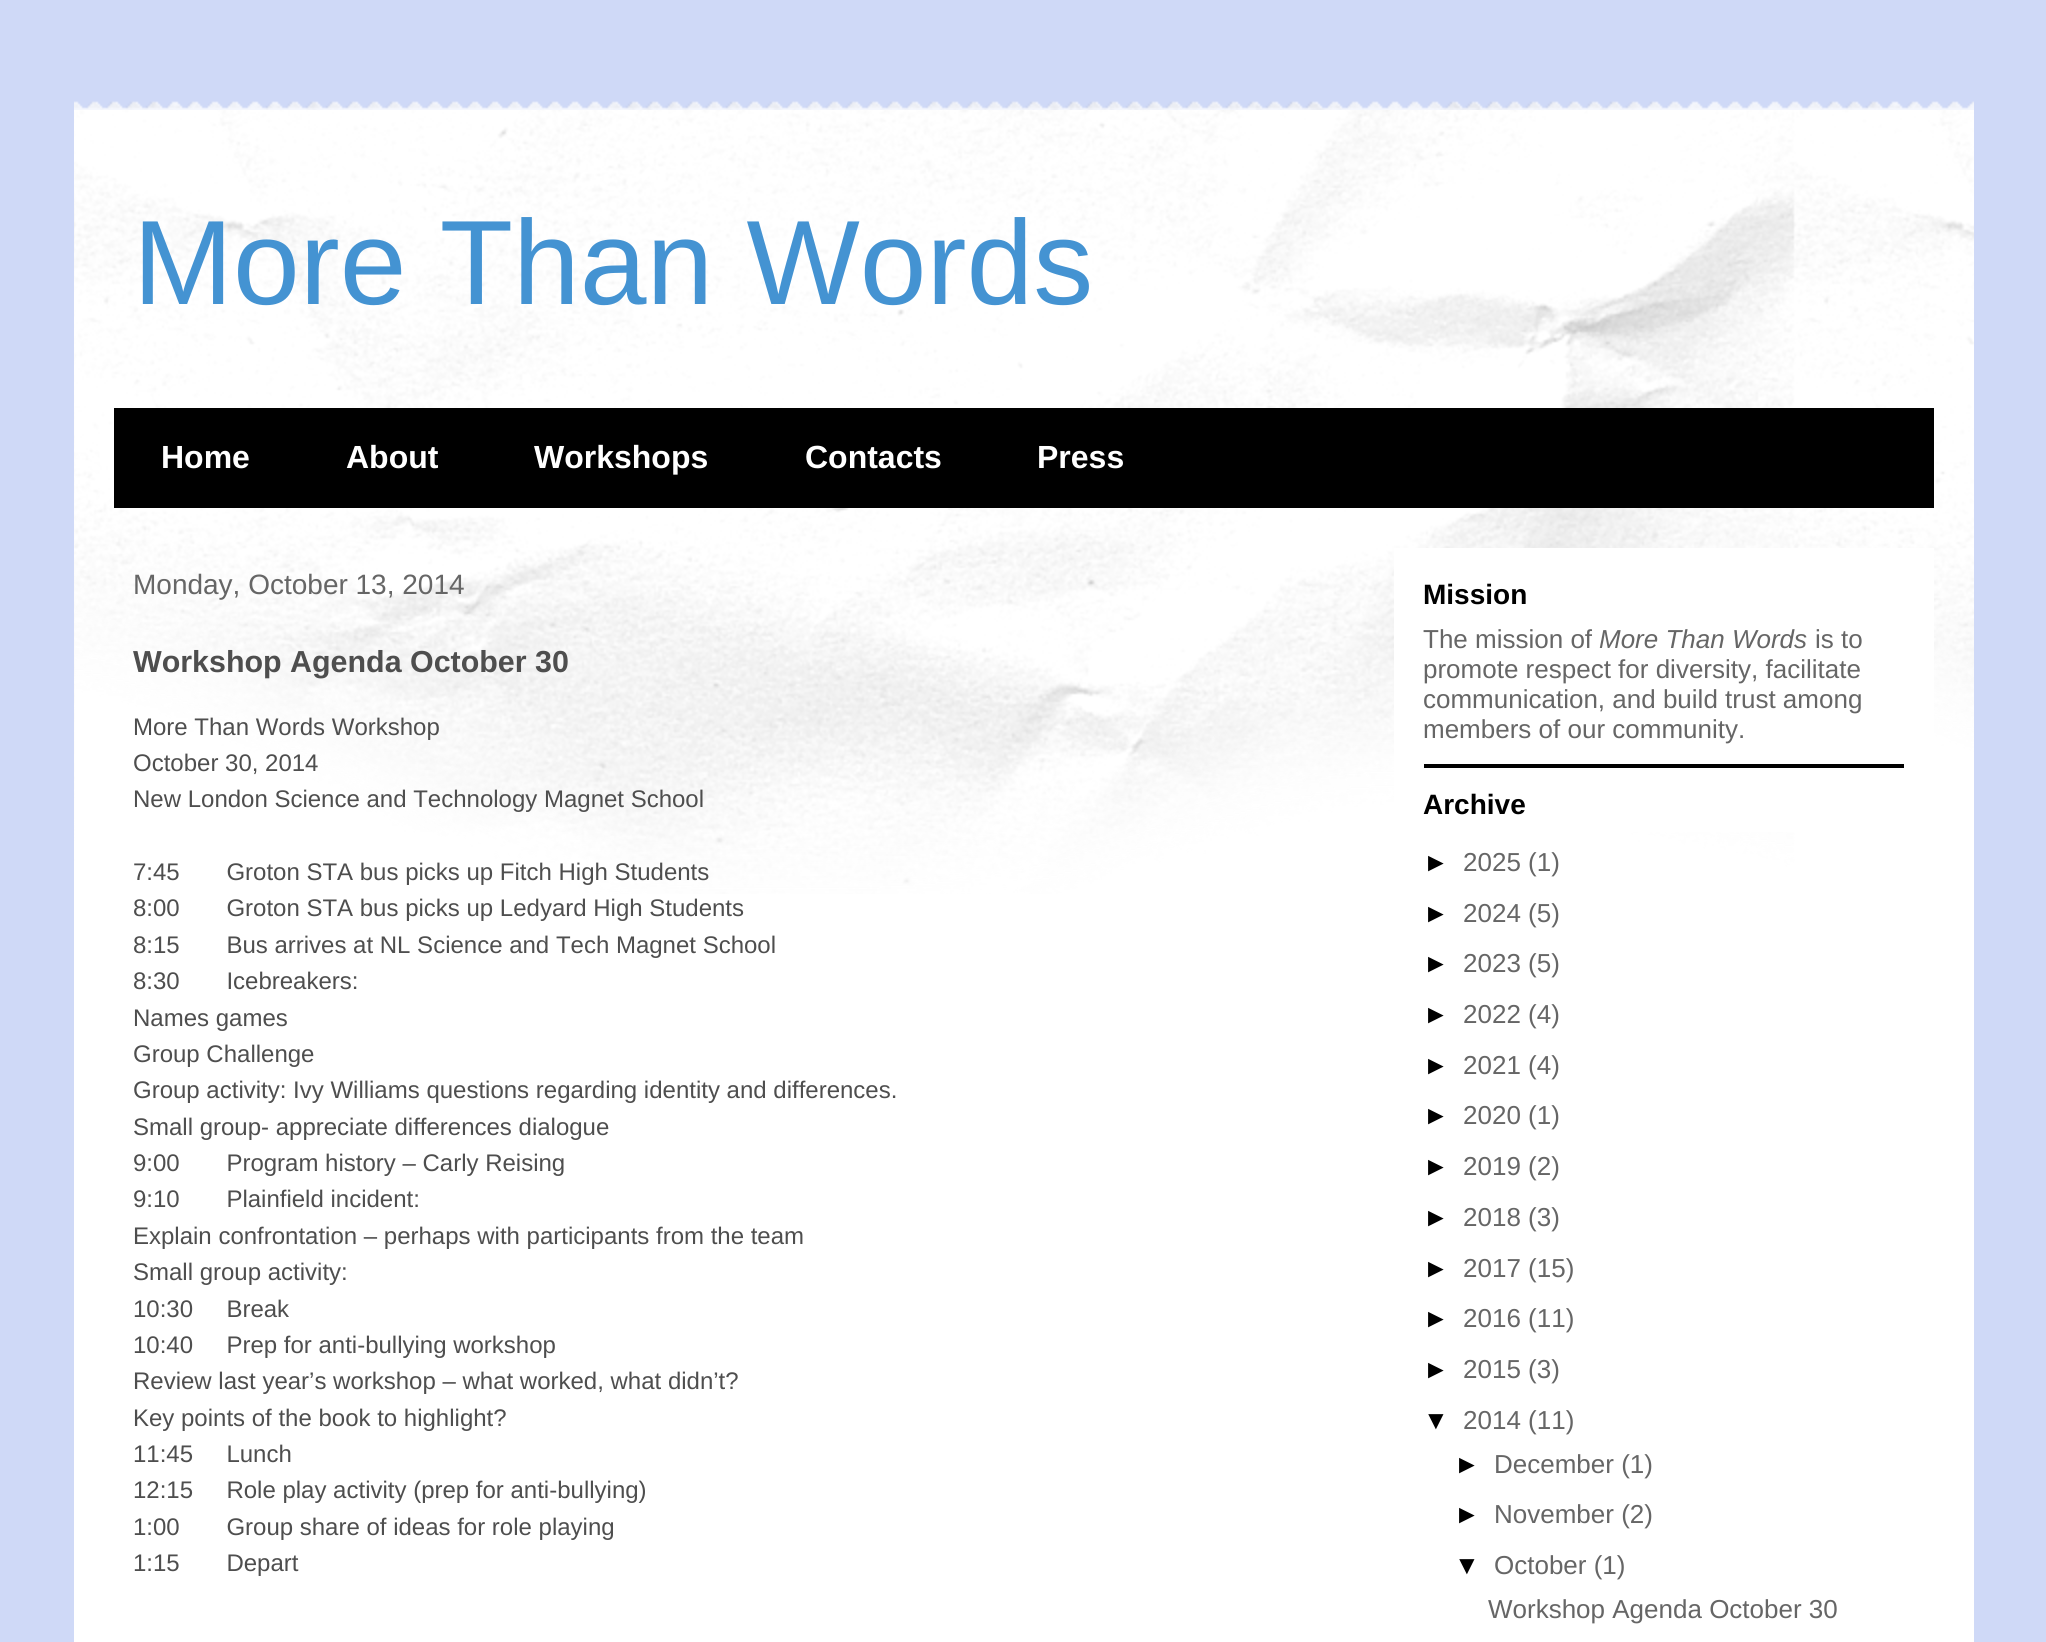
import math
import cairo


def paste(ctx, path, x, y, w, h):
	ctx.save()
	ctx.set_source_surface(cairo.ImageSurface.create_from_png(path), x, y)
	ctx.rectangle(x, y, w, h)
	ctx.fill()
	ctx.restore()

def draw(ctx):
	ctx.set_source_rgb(0.812, 0.851, 0.965)
	ctx.paint()
	paste(ctx, 'media/1.png', 74, 101, 1900, 9)
	ctx.set_source_rgb(1, 1, 1)
	ctx.rectangle(74, 110, 1900, 1532)
	ctx.fill()
	paste(ctx, 'media/2.png', 74, 110, 1900, 784)
	ctx.select_font_face('Liberation Sans')
	ctx.set_font_size(120)
	ctx.set_source_rgb(0.267, 0.576, 0.824)
	ctx.move_to(133, 304)
	ctx.show_text('More Than Words')
	ctx.set_source_rgb(0, 0, 0)
	ctx.rectangle(114, 408, 1820, 100)
	ctx.fill()
	ctx.select_font_face('Liberation Sans', cairo.FONT_SLANT_NORMAL, cairo.FONT_WEIGHT_BOLD)
	ctx.set_font_size(32)
	ctx.set_source_rgb(1, 1, 1)
	for x, y, s in [
		(161, 468, 'Home'),
		(346, 468, 'About'),
		(534, 468, 'Workshops'),
		(805, 468, 'Contacts'),
		(1037, 468, 'Press'),
	]:
		ctx.move_to(x, y)
		ctx.show_text(s)
	ctx.rectangle(1394, 548, 540, 284)
	ctx.fill()
	ctx.select_font_face('Liberation Sans')
	ctx.set_font_size(28)
	ctx.set_source_rgb(0.4, 0.4, 0.4)
	ctx.move_to(133, 594)
	ctx.show_text('Monday, October 13, 2014')
	ctx.select_font_face('Liberation Sans', cairo.FONT_SLANT_NORMAL, cairo.FONT_WEIGHT_BOLD)
	ctx.set_font_size(30.4)
	ctx.set_source_rgb(0.306, 0.306, 0.306)
	ctx.move_to(133, 672)
	ctx.show_text('Workshop Agenda October 30')
	ctx.select_font_face('Liberation Sans')
	ctx.set_font_size(24)
	for x, y, s in [
		(133, 735, 'More Than Words Workshop'),
		(133, 771, 'October 30, 2014'),
		(133, 807, 'New London Science and Technology Magnet School'),
		(133, 880, '7:45       Groton STA bus picks up Fitch High Students'),
		(133, 916, '8:00       Groton STA bus picks up Ledyard High Students'),
		(133, 953, '8:15       Bus arrives at NL Science and Tech Magnet School'),
		(133, 989, '8:30       Icebreakers:'),
		(133, 1026, 'Names games'),
		(133, 1062, 'Group Challenge'),
		(133, 1098, 'Group activity: Ivy Williams questions regarding identity and differences.'),
		(133, 1135, 'Small group- appreciate differences dialogue'),
		(133, 1171, '9:00       Program history – Carly Reising'),
		(133, 1207, '9:10       Plainfield incident:'),
		(133, 1244, 'Explain confrontation – perhaps with participants from the team'),
		(133, 1280, 'Small group activity:'),
		(133, 1317, '10:30     Break'),
		(133, 1353, '10:40     Prep for anti-bullying workshop'),
		(133, 1389, 'Review last year’s workshop – what worked, what didn’t?'),
		(133, 1426, 'Key points of the book to highlight?'),
		(133, 1462, '11:45     Lunch'),
		(133, 1498, '12:15     Role play activity (prep for anti-bullying)'),
		(133, 1535, '1:00       Group share of ideas for role playing'),
		(133, 1571, '1:15       Depart'),
	]:
		ctx.move_to(x, y)
		ctx.show_text(s)
	ctx.set_source_rgb(0, 0, 0)
	ctx.rectangle(1424, 764, 480, 4)
	ctx.fill()
	ctx.select_font_face('Liberation Sans', cairo.FONT_SLANT_NORMAL, cairo.FONT_WEIGHT_BOLD)
	ctx.set_font_size(28)
	ctx.move_to(1423, 604)
	ctx.show_text('Mission')
	ctx.select_font_face('Liberation Sans')
	ctx.set_font_size(26)
	ctx.set_source_rgb(0.4, 0.4, 0.4)
	ctx.move_to(1423, 648)
	ctx.show_text('The mission of')
	ctx.select_font_face('Liberation Sans', cairo.FONT_SLANT_ITALIC)
	ctx.move_to(1599, 648)
	ctx.show_text('More Than Words')
	ctx.select_font_face('Liberation Sans')
	for x, y, s in [
		(1815, 648, 'is to'),
		(1423, 678, 'promote respect for diversity, facilitate'),
		(1423, 708, 'communication, and build trust among'),
		(1423, 738, 'members of our community.'),
	]:
		ctx.move_to(x, y)
		ctx.show_text(s)
	ctx.select_font_face('Liberation Sans', cairo.FONT_SLANT_NORMAL, cairo.FONT_WEIGHT_BOLD)
	ctx.set_font_size(28)
	ctx.set_source_rgb(0, 0, 0)
	ctx.move_to(1423, 814)
	ctx.show_text('Archive')
	ctx.select_font_face('Liberation Sans')
	ctx.set_font_size(26)
	ctx.move_to(1423, 871)
	ctx.show_text('►')
	ctx.set_source_rgb(0.4, 0.4, 0.4)
	ctx.move_to(1463, 871)
	ctx.show_text('2025 (1)')
	ctx.set_source_rgb(0, 0, 0)
	ctx.move_to(1423, 922)
	ctx.show_text('►')
	ctx.set_source_rgb(0.4, 0.4, 0.4)
	ctx.move_to(1463, 922)
	ctx.show_text('2024 (5)')
	ctx.set_source_rgb(0, 0, 0)
	ctx.move_to(1423, 972)
	ctx.show_text('►')
	ctx.set_source_rgb(0.4, 0.4, 0.4)
	ctx.move_to(1463, 972)
	ctx.show_text('2023 (5)')
	ctx.set_source_rgb(0, 0, 0)
	ctx.move_to(1423, 1023)
	ctx.show_text('►')
	ctx.set_source_rgb(0.4, 0.4, 0.4)
	ctx.move_to(1463, 1023)
	ctx.show_text('2022 (4)')
	ctx.set_source_rgb(0, 0, 0)
	ctx.move_to(1423, 1074)
	ctx.show_text('►')
	ctx.set_source_rgb(0.4, 0.4, 0.4)
	ctx.move_to(1463, 1074)
	ctx.show_text('2021 (4)')
	ctx.set_source_rgb(0, 0, 0)
	ctx.move_to(1423, 1124)
	ctx.show_text('►')
	ctx.set_source_rgb(0.4, 0.4, 0.4)
	ctx.move_to(1463, 1124)
	ctx.show_text('2020 (1)')
	ctx.set_source_rgb(0, 0, 0)
	ctx.move_to(1423, 1175)
	ctx.show_text('►')
	ctx.set_source_rgb(0.4, 0.4, 0.4)
	ctx.move_to(1463, 1175)
	ctx.show_text('2019 (2)')
	ctx.set_source_rgb(0, 0, 0)
	ctx.move_to(1423, 1226)
	ctx.show_text('►')
	ctx.set_source_rgb(0.4, 0.4, 0.4)
	ctx.move_to(1463, 1226)
	ctx.show_text('2018 (3)')
	ctx.set_source_rgb(0, 0, 0)
	ctx.move_to(1423, 1277)
	ctx.show_text('►')
	ctx.set_source_rgb(0.4, 0.4, 0.4)
	ctx.move_to(1463, 1277)
	ctx.show_text('2017 (15)')
	ctx.set_source_rgb(0, 0, 0)
	ctx.move_to(1423, 1327)
	ctx.show_text('►')
	ctx.set_source_rgb(0.4, 0.4, 0.4)
	ctx.move_to(1463, 1327)
	ctx.show_text('2016 (11)')
	ctx.set_source_rgb(0, 0, 0)
	ctx.move_to(1423, 1378)
	ctx.show_text('►')
	ctx.set_source_rgb(0.4, 0.4, 0.4)
	ctx.move_to(1463, 1378)
	ctx.show_text('2015 (3)')
	ctx.set_source_rgb(0, 0, 0)
	ctx.move_to(1423, 1429)
	ctx.show_text('▼')
	ctx.set_source_rgb(0.4, 0.4, 0.4)
	ctx.move_to(1463, 1429)
	ctx.show_text('2014 (11)')
	ctx.set_source_rgb(0, 0, 0)
	ctx.move_to(1454, 1473)
	ctx.show_text('►')
	ctx.set_source_rgb(0.4, 0.4, 0.4)
	ctx.move_to(1494, 1473)
	ctx.show_text('December (1)')
	ctx.set_source_rgb(0, 0, 0)
	ctx.move_to(1454, 1523)
	ctx.show_text('►')
	ctx.set_source_rgb(0.4, 0.4, 0.4)
	ctx.move_to(1494, 1523)
	ctx.show_text('November (2)')
	ctx.set_source_rgb(0, 0, 0)
	ctx.move_to(1454, 1574)
	ctx.show_text('▼')
	ctx.set_source_rgb(0.4, 0.4, 0.4)
	ctx.move_to(1494, 1574)
	ctx.show_text('October (1)')
	ctx.move_to(1488, 1618)
	ctx.show_text('Workshop Agenda October 30')


surface = cairo.ImageSurface(cairo.FORMAT_RGB24, 2046, 1642)
ctx = cairo.Context(surface)
options = cairo.FontOptions()
options.set_hint_metrics(cairo.HINT_METRICS_OFF)
options.set_hint_style(cairo.HINT_STYLE_NONE)
ctx.set_font_options(options)
ctx.set_miter_limit(4)
draw(ctx)
surface.write_to_png('image.png')
